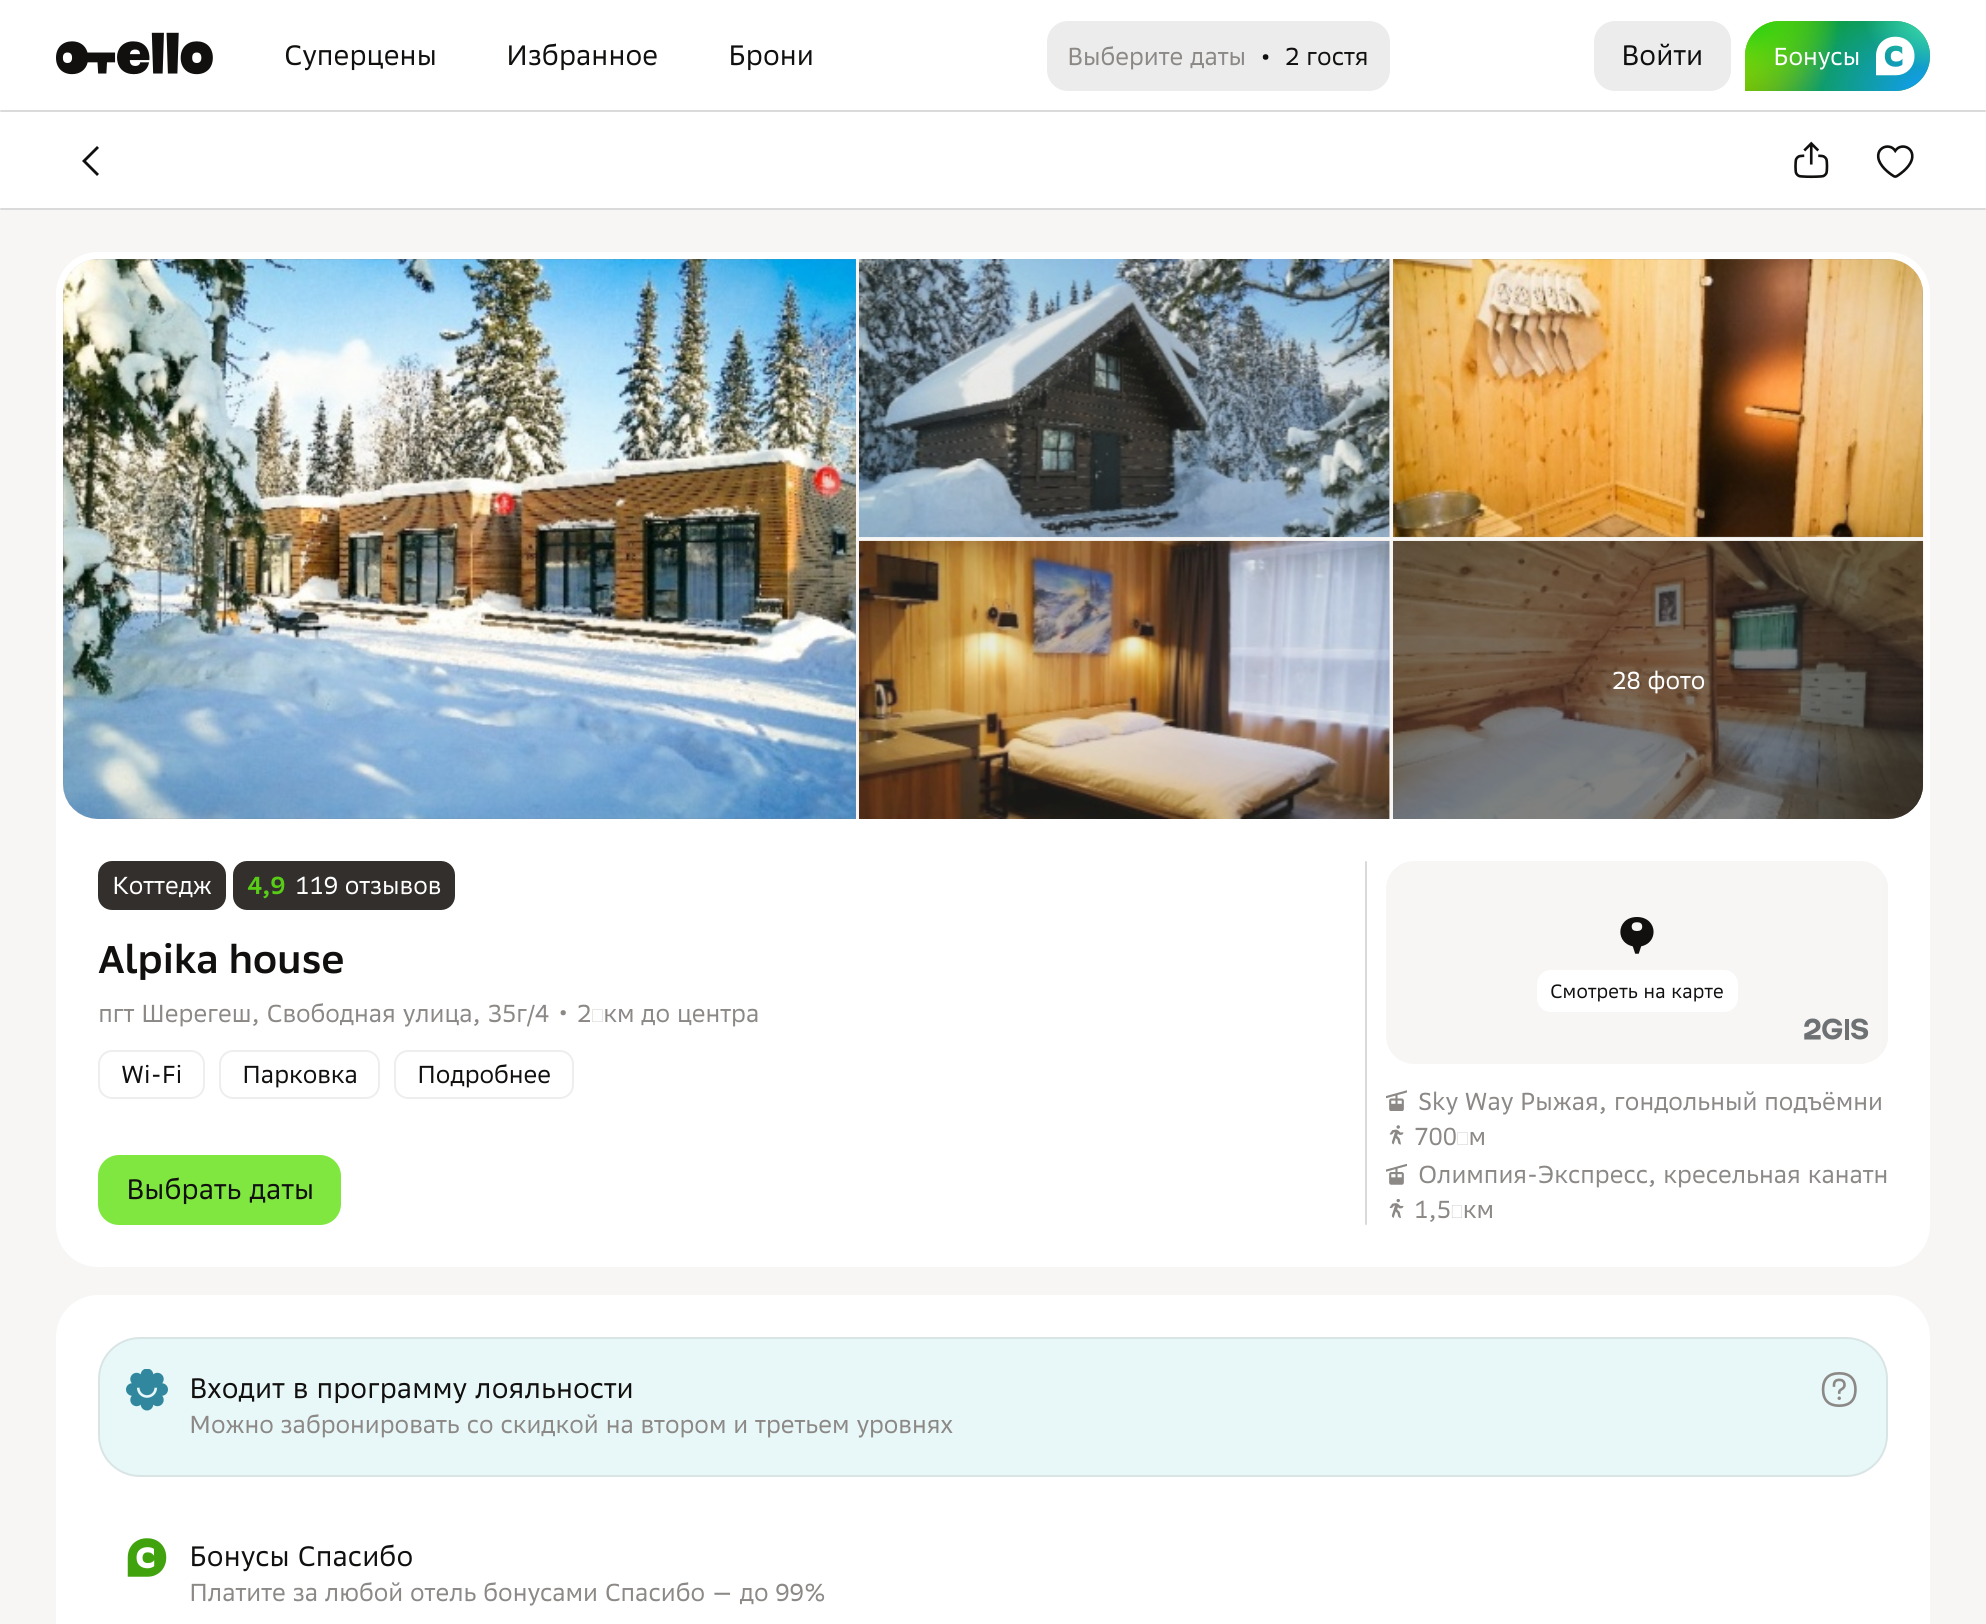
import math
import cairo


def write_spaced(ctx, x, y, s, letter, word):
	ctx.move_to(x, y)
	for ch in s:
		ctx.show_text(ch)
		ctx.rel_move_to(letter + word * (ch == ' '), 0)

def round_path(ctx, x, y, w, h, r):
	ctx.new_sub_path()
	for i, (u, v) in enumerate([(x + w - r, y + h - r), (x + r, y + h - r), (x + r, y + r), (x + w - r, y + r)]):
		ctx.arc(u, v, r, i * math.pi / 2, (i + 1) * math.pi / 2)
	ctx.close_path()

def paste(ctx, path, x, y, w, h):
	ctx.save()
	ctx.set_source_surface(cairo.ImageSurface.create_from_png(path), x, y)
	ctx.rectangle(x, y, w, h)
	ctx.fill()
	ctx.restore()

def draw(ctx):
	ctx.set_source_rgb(0.965, 0.961, 0.957)
	ctx.paint()
	ctx.set_source_rgb(1, 1, 1)
	ctx.rectangle(0, 0, 1986, 210)
	ctx.fill()
	ctx.set_source_rgb(0.855, 0.855, 0.855)
	round_path(ctx, 0, 110, 1986, 2, 1)
	ctx.fill()
	paste(ctx, 'media/1.png', 56, 32, 157, 43)
	ctx.select_font_face('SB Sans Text')
	ctx.set_font_size(28)
	ctx.set_source_rgb(0.067, 0.063, 0.059)
	for x, y, s in [
		(284, 65, 'Суперцены'),
		(506, 65, 'Избранное'),
		(728, 65, 'Брони'),
	]:
		write_spaced(ctx, x, y, s, -0.4, 0)
	ctx.set_source_rgb(0.922, 0.922, 0.922)
	round_path(ctx, 1047, 21, 343, 70, 21)
	ctx.fill()
	ctx.set_font_size(24.5)
	ctx.set_source_rgb(0.545, 0.533, 0.525)
	write_spaced(ctx, 1067, 65, 'Выберите даты', -0.5, 0)
	ctx.set_font_size(28)
	ctx.set_source_rgb(0.067, 0.063, 0.059)
	write_spaced(ctx, 1260, 67, '•', -0.4, 0)
	ctx.set_font_size(24.5)
	write_spaced(ctx, 1285, 65, '2 гостя', -0.5, 0)
	ctx.set_source_rgb(0.922, 0.922, 0.922)
	round_path(ctx, 1594, 21, 137, 70, 21)
	ctx.fill()
	ctx.set_font_size(28)
	ctx.set_source_rgb(0.067, 0.063, 0.059)
	write_spaced(ctx, 1621, 65, 'Войти', -0.4, 0)
	ctx.set_source_rgb(0.047, 0.612, 0.047)
	ctx.new_path()
	ctx.move_to(1780, 21)
	ctx.line_to(1895, 21)
	ctx.curve_to(1914.5, 21, 1930, 36.5, 1930, 56)
	ctx.curve_to(1930, 75.5, 1914.5, 91, 1895, 91)
	ctx.line_to(1745, 91)
	ctx.line_to(1745, 56)
	ctx.curve_to(1745, 36.5, 1760.5, 21, 1780, 21)
	ctx.close_path()
	ctx.fill()
	gradient = cairo.RadialGradient(0, 0, 0, 0, 0, 1)
	gradient.set_matrix(cairo.Matrix(1 / 182, 0, 0, 1 / 129, -1 * 1930 / 182, -1 * 91 / 129))
	gradient.add_color_stop_rgba(0, 0.071, 0.616, 0.98, 1)
	gradient.add_color_stop_rgba(1, 0.071, 0.616, 0.98, 0)
	ctx.set_source(gradient)
	ctx.new_path()
	ctx.move_to(1780, 21)
	ctx.line_to(1895, 21)
	ctx.curve_to(1914.5, 21, 1930, 36.5, 1930, 56)
	ctx.curve_to(1930, 75.5, 1914.5, 91, 1895, 91)
	ctx.line_to(1745, 91)
	ctx.line_to(1745, 56)
	ctx.curve_to(1745, 36.5, 1760.5, 21, 1780, 21)
	ctx.close_path()
	ctx.fill()
	gradient = cairo.RadialGradient(0, 0, 0, 0, 0, 1)
	gradient.set_matrix(cairo.Matrix(1 / 72, 0, 0, 1 / 48, -1 * 1937 / 72, -1 * 21 / 48))
	gradient.add_color_stop_rgba(0, 0.259, 0.89, 0.706, 1)
	gradient.add_color_stop_rgba(1, 0.259, 0.89, 0.706, 0)
	ctx.set_source(gradient)
	ctx.new_path()
	ctx.move_to(1780, 21)
	ctx.line_to(1895, 21)
	ctx.curve_to(1914.5, 21, 1930, 36.5, 1930, 56)
	ctx.curve_to(1930, 75.5, 1914.5, 91, 1895, 91)
	ctx.line_to(1745, 91)
	ctx.line_to(1745, 56)
	ctx.curve_to(1745, 36.5, 1760.5, 21, 1780, 21)
	ctx.close_path()
	ctx.fill()
	gradient = cairo.RadialGradient(0, 0, 0, 0, 0, 1)
	gradient.set_matrix(cairo.Matrix(1 / 101, 0, 0, 1 / 123, -1 * 1737 / 101, -1 * 21 / 123))
	gradient.add_color_stop_rgba(0, 0.98, 0.929, 0.02, 1)
	gradient.add_color_stop_rgba(1, 0.98, 0.929, 0.02, 0)
	ctx.set_source(gradient)
	ctx.new_path()
	ctx.move_to(1780, 21)
	ctx.line_to(1895, 21)
	ctx.curve_to(1914.5, 21, 1930, 36.5, 1930, 56)
	ctx.curve_to(1930, 75.5, 1914.5, 91, 1895, 91)
	ctx.line_to(1745, 91)
	ctx.line_to(1745, 56)
	ctx.curve_to(1745, 36.5, 1760.5, 21, 1780, 21)
	ctx.close_path()
	ctx.fill()
	gradient = cairo.RadialGradient(0, 0, 0, 0, 0, 1)
	gradient.set_matrix(cairo.Matrix(1 / 100, 0, 0, 1 / 71, -1 * 1745 / 100, -1 * 21 / 71))
	gradient.add_color_stop_rgba(0, 0.082, 0.816, 0.082, 1)
	gradient.add_color_stop_rgba(1, 0.082, 0.816, 0.082, 0)
	ctx.set_source(gradient)
	ctx.new_path()
	ctx.move_to(1780, 21)
	ctx.line_to(1895, 21)
	ctx.curve_to(1914.5, 21, 1930, 36.5, 1930, 56)
	ctx.curve_to(1930, 75.5, 1914.5, 91, 1895, 91)
	ctx.line_to(1745, 91)
	ctx.line_to(1745, 56)
	ctx.curve_to(1745, 36.5, 1760.5, 21, 1780, 21)
	ctx.close_path()
	ctx.fill()
	ctx.set_font_size(24.5)
	ctx.set_source_rgb(1, 1, 1)
	write_spaced(ctx, 1773, 65, 'Бонусы', -0.5, 0)
	paste(ctx, 'media/2.png', 1876, 36, 39, 40)
	ctx.set_source_rgb(0.855, 0.855, 0.855)
	round_path(ctx, 0, 208, 1986, 2, 1)
	ctx.fill()
	ctx.set_source_rgb(0.067, 0.063, 0.059)
	ctx.set_fill_rule(cairo.FILL_RULE_EVEN_ODD)
	ctx.new_path()
	ctx.move_to(97, 176)
	ctx.line_to(99, 174)
	ctx.line_to(86, 161)
	ctx.line_to(99, 148)
	ctx.line_to(97, 146)
	ctx.line_to(82, 161)
	ctx.close_path()
	ctx.fill()
	paste(ctx, 'media/3.png', 1794, 141, 35, 38)
	paste(ctx, 'media/4.png', 1876, 145, 38, 33)
	ctx.set_source_rgb(1, 1, 1)
	round_path(ctx, 56, 252, 1874, 1015, 42)
	ctx.fill()
	ctx.set_source_rgb(0.965, 0.961, 0.957)
	round_path(ctx, 63, 259, 1860, 560, 35)
	ctx.fill()
	ctx.set_source_rgb(0.929, 0.922, 0.918)
	ctx.new_path()
	ctx.move_to(98, 259)
	ctx.line_to(856, 259)
	ctx.line_to(856, 819)
	ctx.line_to(98, 819)
	ctx.curve_to(78.5, 819, 63, 803.5, 63, 784)
	ctx.line_to(63, 294)
	ctx.curve_to(63, 274.5, 78.5, 259, 98, 259)
	ctx.close_path()
	ctx.fill()
	paste(ctx, 'media/5.png', 63, 259, 793, 560)
	ctx.set_source_rgba(0.518, 0.514, 0.51, 0.16)
	ctx.new_path()
	ctx.move_to(64, 286)
	ctx.line_to(63, 294)
	ctx.line_to(63, 784)
	ctx.line_to(64, 792)
	ctx.close_path()
	ctx.move_to(98, 259)
	ctx.line_to(90, 260)
	ctx.line_to(855, 260)
	ctx.line_to(855, 818)
	ctx.line_to(90, 818)
	ctx.line_to(98, 819)
	ctx.line_to(856, 819)
	ctx.line_to(856, 259)
	ctx.close_path()
	ctx.fill()
	ctx.set_source_rgb(0.863, 0.855, 0.851)
	ctx.rectangle(1389, 259, 1, 278)
	ctx.fill()
	paste(ctx, 'media/6.png', 859, 259, 531, 279)
	ctx.rectangle(1389, 541, 1, 278)
	ctx.fill()
	paste(ctx, 'media/7.png', 859, 540, 531, 279)
	ctx.set_source_rgb(0.929, 0.922, 0.918)
	ctx.new_path()
	ctx.move_to(1393, 259)
	ctx.line_to(1888, 259)
	ctx.curve_to(1907.5, 259, 1923, 274.5, 1923, 294)
	ctx.line_to(1923, 537)
	ctx.line_to(1393, 537)
	ctx.close_path()
	ctx.fill()
	paste(ctx, 'media/8.png', 1393, 259, 531, 279)
	ctx.set_source_rgba(0.518, 0.514, 0.51, 0.16)
	ctx.set_fill_rule(cairo.FILL_RULE_WINDING)
	ctx.new_path()
	ctx.move_to(1393, 259)
	ctx.line_to(1393, 537)
	ctx.line_to(1923, 537)
	ctx.line_to(1923, 294)
	ctx.line_to(1922, 286)
	ctx.line_to(1922, 536)
	ctx.line_to(1394, 536)
	ctx.line_to(1394, 260)
	ctx.line_to(1896, 260)
	ctx.line_to(1888, 259)
	ctx.close_path()
	ctx.fill()
	ctx.set_source_rgb(0.929, 0.922, 0.918)
	ctx.new_path()
	ctx.move_to(1393, 541)
	ctx.line_to(1923, 541)
	ctx.line_to(1923, 784)
	ctx.curve_to(1923, 803.5, 1907.5, 819, 1888, 819)
	ctx.line_to(1393, 819)
	ctx.close_path()
	ctx.fill()
	paste(ctx, 'media/9.png', 1393, 540, 531, 279)
	ctx.set_source_rgba(0, 0, 0, 0.5)
	ctx.new_path()
	ctx.move_to(1393, 541)
	ctx.line_to(1923, 541)
	ctx.line_to(1923, 784)
	ctx.curve_to(1923, 803.5, 1907.5, 819, 1888, 819)
	ctx.line_to(1393, 819)
	ctx.close_path()
	ctx.fill()
	ctx.save()
	ctx.rectangle(1393, 541, 530, 278)
	ctx.clip()
	ctx.set_source_rgba(0.518, 0.514, 0.51, 0.16)
	ctx.new_path()
	ctx.move_to(1393, 541)
	ctx.line_to(1393, 819)
	ctx.line_to(1888, 819)
	ctx.curve_to(1904, 819, 1919, 807, 1922, 791)
	ctx.curve_to(1925, 777, 1923, 749, 1923, 744)
	ctx.line_to(1923, 541)
	ctx.close_path()
	ctx.fill()
	ctx.restore()
	ctx.set_source_rgb(1, 1, 1)
	write_spaced(ctx, 1612, 689, '28 фото', -0.5, 0)
	ctx.set_source_rgb(0.196, 0.184, 0.173)
	round_path(ctx, 98, 861, 128, 49, 14)
	ctx.fill()
	ctx.set_source_rgb(1, 1, 1)
	write_spaced(ctx, 112, 894, 'Коттедж', -0.5, 0)
	ctx.set_source_rgb(0.196, 0.184, 0.173)
	round_path(ctx, 233, 861, 222, 49, 14)
	ctx.fill()
	ctx.select_font_face('SB Sans Text SemiBold')
	ctx.set_source_rgb(0.345, 0.8, 0.086)
	write_spaced(ctx, 247, 894, '4,9', -0.5, 0)
	ctx.select_font_face('SB Sans Text')
	ctx.set_source_rgb(1, 1, 1)
	write_spaced(ctx, 295, 894, '119 отзывов', -0.5, 0)
	ctx.select_font_face('SB Sans Text SemiBold')
	ctx.set_font_size(38.5)
	ctx.set_source_rgb(0.067, 0.063, 0.059)
	write_spaced(ctx, 98, 973, 'Alpika house', -0.75, 0)
	ctx.select_font_face('SB Sans Text')
	ctx.set_font_size(24.5)
	ctx.set_source_rgb(0.545, 0.533, 0.525)
	write_spaced(ctx, 98, 1022, 'пгт Шерегеш, Свободная улица, 35г/4', -0.5, 0)
	ctx.set_font_size(26)
	write_spaced(ctx, 558, 1022, '•', -0.5, 0)
	ctx.set_font_size(24.5)
	write_spaced(ctx, 577, 1022, '2 км до центра', -0.5, 0)
	round_path(ctx, 99, 1051, 105, 47, 13)
	ctx.set_source_rgb(0.933, 0.933, 0.933)
	ctx.stroke()
	ctx.set_source_rgb(0.067, 0.063, 0.059)
	write_spaced(ctx, 121, 1083, 'Wi-Fi', -0.5, 0)
	round_path(ctx, 220, 1051, 159, 47, 13)
	ctx.set_source_rgb(0.933, 0.933, 0.933)
	ctx.stroke()
	ctx.set_source_rgb(0.067, 0.063, 0.059)
	write_spaced(ctx, 242, 1083, 'Парковка', -0.5, 0)
	round_path(ctx, 395, 1051, 178, 47, 13)
	ctx.set_source_rgb(0.933, 0.933, 0.933)
	ctx.stroke()
	ctx.set_source_rgb(0.067, 0.063, 0.059)
	write_spaced(ctx, 417, 1083, 'Подробнее', -0.5, 0)
	ctx.set_source_rgb(0.498, 0.906, 0.251)
	round_path(ctx, 98, 1155, 243, 70, 21)
	ctx.fill()
	ctx.set_font_size(28)
	ctx.set_source_rgb(0.067, 0.063, 0.059)
	write_spaced(ctx, 126, 1199, 'Выбрать даты', -0.4, 0)
	ctx.set_source_rgb(0.855, 0.855, 0.855)
	round_path(ctx, 1365, 861, 2, 364, 1)
	ctx.fill()
	ctx.set_source_rgb(0.965, 0.961, 0.957)
	round_path(ctx, 1386, 861, 502, 203, 28)
	ctx.fill()
	paste(ctx, 'media/10.png', 1620, 917, 34, 37)
	ctx.set_source_rgb(1, 1, 1)
	round_path(ctx, 1537, 970, 201, 42, 14)
	ctx.fill()
	ctx.set_font_size(19.25)
	ctx.set_source_rgb(0.067, 0.063, 0.059)
	write_spaced(ctx, 1550, 998, 'Смотреть на карте', -0.3, 0)
	paste(ctx, 'media/11.png', 1804, 1018, 65, 22)
	paste(ctx, 'media/12.png', 1882, 877, 6, 176)
	paste(ctx, 'media/13.png', 1386, 1090, 21, 21)
	ctx.set_font_size(24.5)
	ctx.set_source_rgb(0.545, 0.533, 0.525)
	write_spaced(ctx, 1418, 1110, 'Sky Way Рыжая, гондольный подъёмни', -0.5, 0)
	paste(ctx, 'media/14.png', 1389, 1125, 15, 20)
	write_spaced(ctx, 1414, 1145, '700 м', -0.5, 0)
	paste(ctx, 'media/15.png', 1386, 1164, 21, 21)
	write_spaced(ctx, 1418, 1183, 'Олимпия-Экспресс, кресельная канатн', -0.5, 0)
	paste(ctx, 'media/16.png', 1389, 1199, 15, 19)
	write_spaced(ctx, 1414, 1218, '1,5 км', -0.5, 0)
	ctx.set_source_rgb(1, 1, 1)
	ctx.new_path()
	ctx.move_to(98, 1295)
	ctx.line_to(1888, 1295)
	ctx.curve_to(1911, 1295, 1930, 1314, 1930, 1337)
	ctx.line_to(1930, 1624)
	ctx.line_to(56, 1624)
	ctx.line_to(56, 1337)
	ctx.curve_to(56, 1314, 75, 1295, 98, 1295)
	ctx.close_path()
	ctx.fill()
	ctx.set_source_rgb(0.91, 0.965, 0.965)
	round_path(ctx, 98, 1337, 1790, 140, 42)
	ctx.fill()
	round_path(ctx, 99, 1338, 1788, 138, 41)
	ctx.set_source_rgba(0.518, 0.514, 0.51, 0.16)
	ctx.stroke()
	paste(ctx, 'media/17.png', 126, 1369, 42, 42)
	ctx.set_font_size(28)
	ctx.set_source_rgb(0.067, 0.063, 0.059)
	write_spaced(ctx, 189, 1398, 'Входит в программу лояльности', -0.4, 0)
	ctx.set_font_size(24.5)
	ctx.set_source_rgb(0.545, 0.533, 0.525)
	write_spaced(ctx, 189, 1433, 'Можно забронировать со скидкой на втором и третьем уровнях', -0.5, 0)
	paste(ctx, 'media/18.png', 1821, 1372, 36, 35)
	paste(ctx, 'media/19.png', 127, 1538, 40, 39)
	ctx.set_font_size(28)
	ctx.set_source_rgb(0.067, 0.063, 0.059)
	write_spaced(ctx, 189, 1566, 'Бонусы Спасибо', -0.4, 0)
	ctx.set_font_size(24.5)
	ctx.set_source_rgb(0.545, 0.533, 0.525)
	write_spaced(ctx, 189, 1601, 'Платите за любой отель бонусами Спасибо — до 99%', -0.5, 0)


surface = cairo.ImageSurface(cairo.FORMAT_RGB24, 1986, 1624)
ctx = cairo.Context(surface)
options = cairo.FontOptions()
options.set_hint_metrics(cairo.HINT_METRICS_OFF)
options.set_hint_style(cairo.HINT_STYLE_NONE)
ctx.set_font_options(options)
ctx.set_miter_limit(4)
draw(ctx)
surface.write_to_png('image.png')
